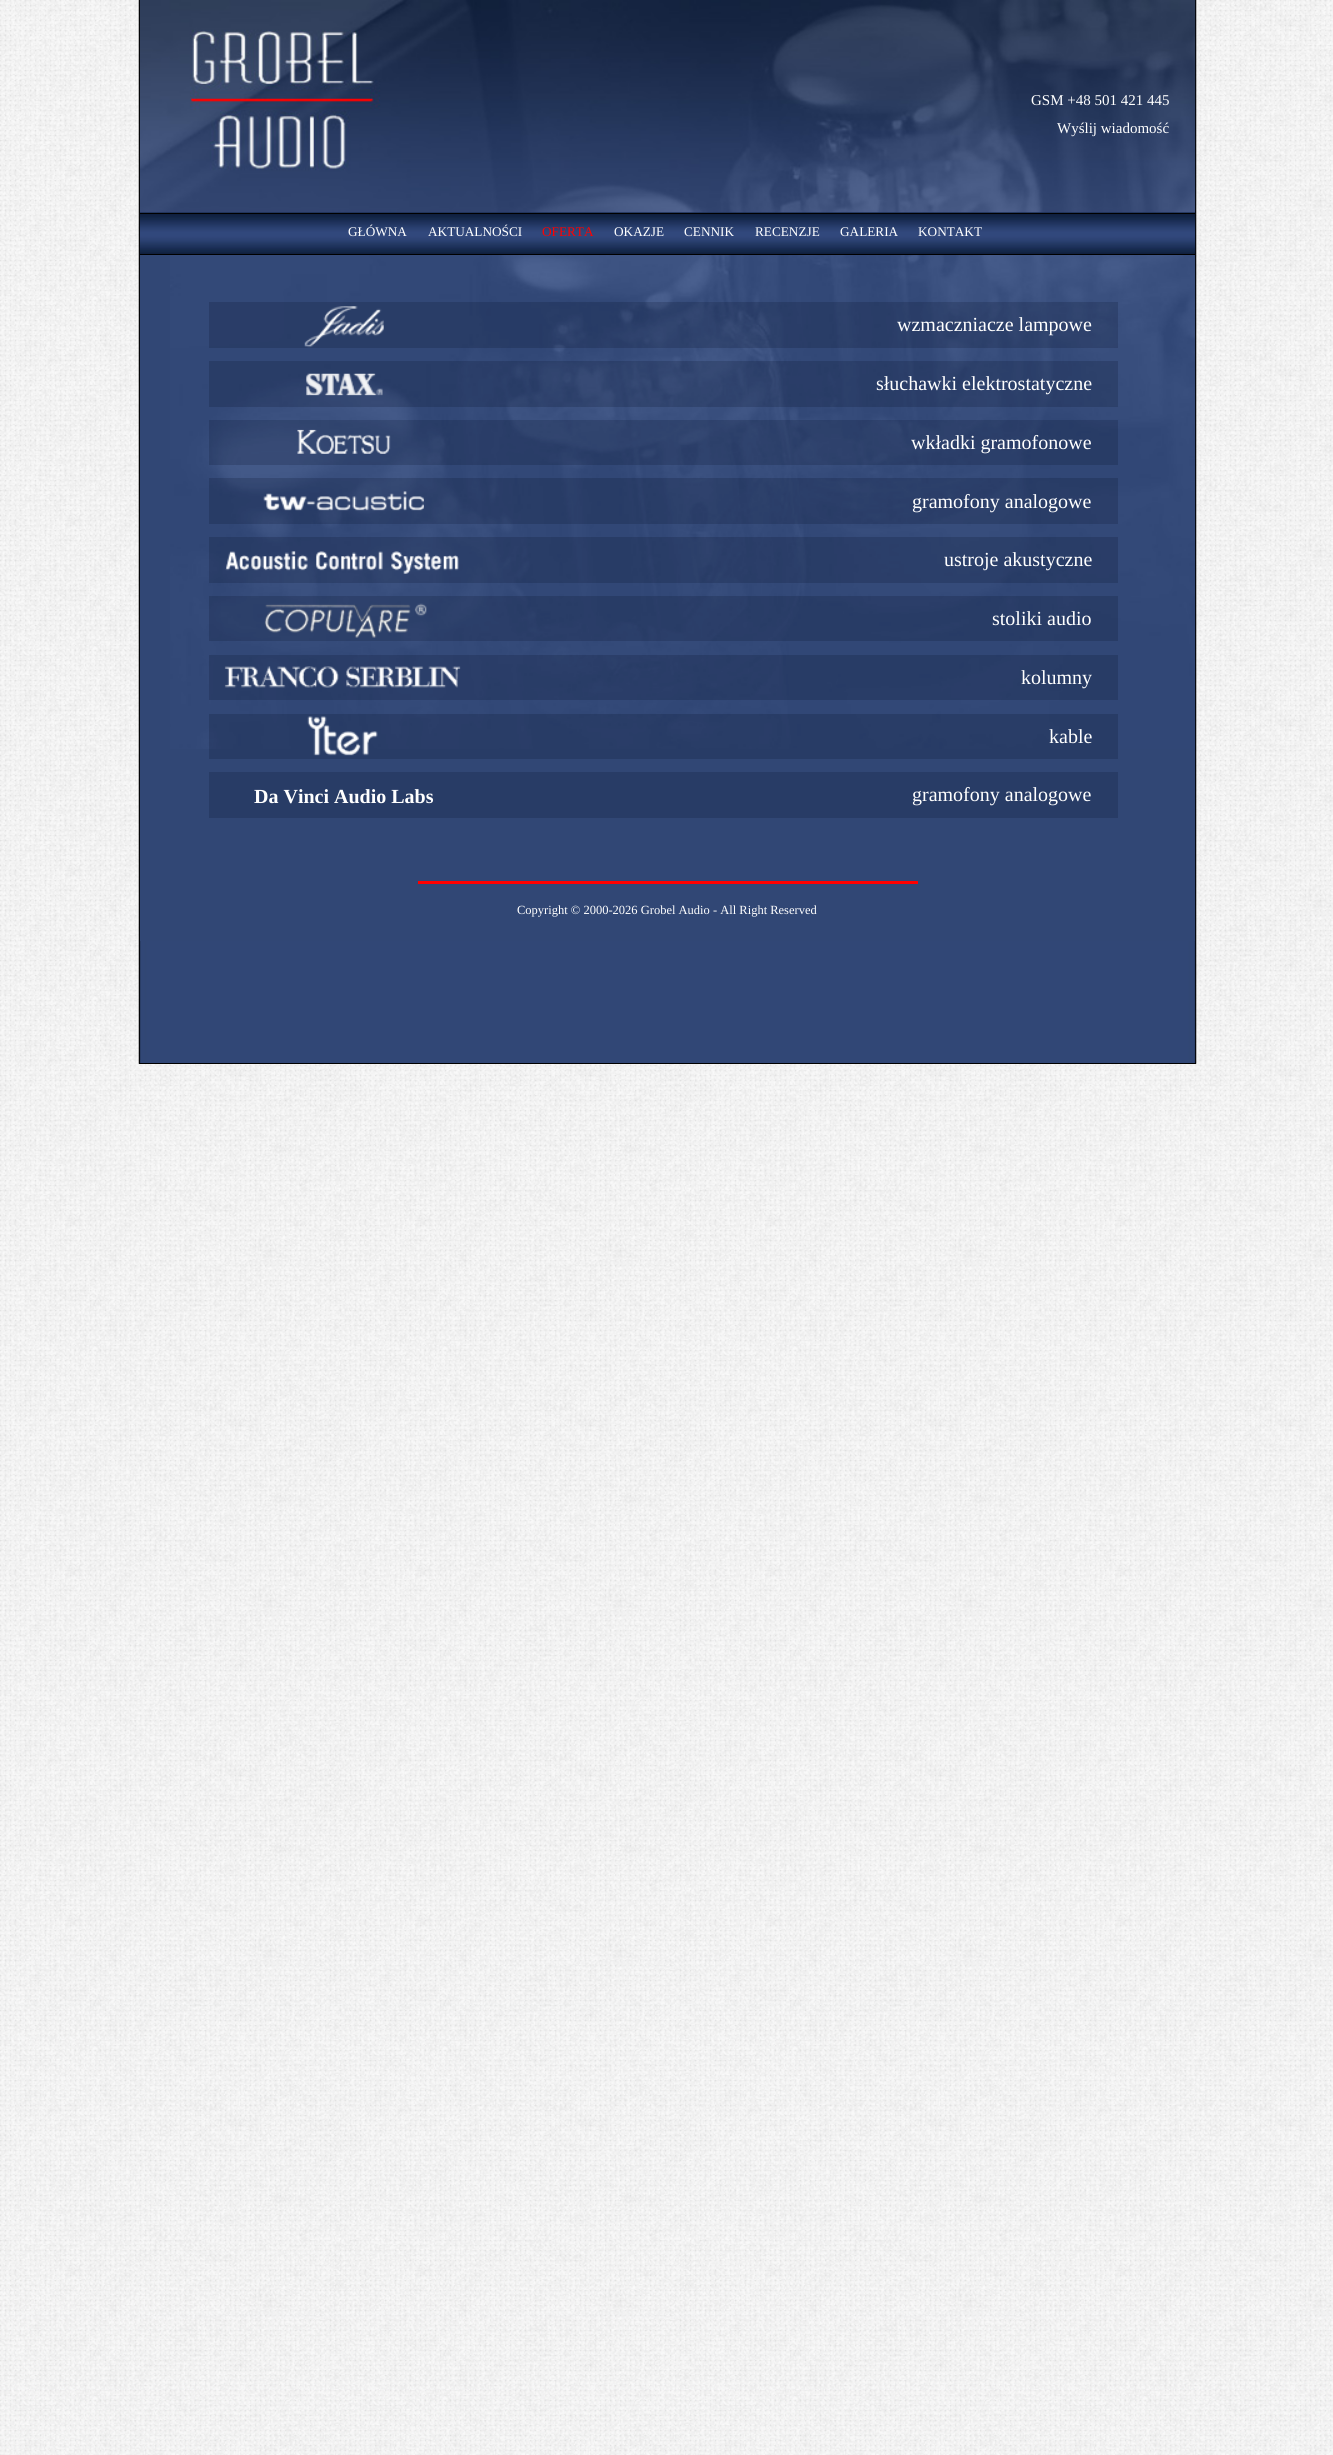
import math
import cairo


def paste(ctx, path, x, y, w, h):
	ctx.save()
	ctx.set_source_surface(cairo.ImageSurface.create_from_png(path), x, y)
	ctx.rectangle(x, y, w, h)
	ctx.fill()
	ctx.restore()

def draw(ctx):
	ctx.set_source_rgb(1, 1, 1)
	ctx.paint()
	paste(ctx, 'media/1.png', 0, 0, 1333, 2455)
	paste(ctx, 'media/2.png', 138, 0, 1059, 1064)
	ctx.set_source_rgb(0, 0, 0)
	ctx.rectangle(139, 1063, 1057, 1)
	ctx.fill()
	ctx.set_source_rgb(0.192, 0.278, 0.459)
	ctx.rectangle(140, 212, 1055, 729)
	ctx.fill()
	paste(ctx, 'media/3.png', 140, 0, 1055, 213)
	ctx.select_font_face('Liberation Serif')
	ctx.set_font_size(15)
	ctx.set_source_rgb(1, 1, 1)
	ctx.move_to(1031, 105)
	ctx.show_text('GSM +48 501 421 445')
	ctx.move_to(1057, 133)
	ctx.show_text('Wyślij wiadomość')
	paste(ctx, 'media/4.png', 140, 212, 1055, 42)
	ctx.set_source_rgb(0, 0, 0)
	ctx.rectangle(140, 213, 1055, 1)
	ctx.fill()
	ctx.rectangle(140, 254, 1055, 1)
	ctx.fill()
	ctx.set_font_size(13.25)
	ctx.set_source_rgb(1, 1, 1)
	ctx.move_to(348, 236)
	ctx.show_text('GŁÓWNA')
	ctx.move_to(428, 236)
	ctx.show_text('AKTUALNOŚCI')
	ctx.set_source_rgb(1, 0, 0)
	ctx.move_to(542, 236)
	ctx.show_text('OFERTA')
	ctx.set_source_rgb(1, 1, 1)
	for x, y, s in [
		(614, 236, 'OKAZJE'),
		(684, 236, 'CENNIK'),
		(755, 236, 'RECENZJE'),
		(840, 236, 'GALERIA'),
		(918, 236, 'KONTAKT'),
	]:
		ctx.move_to(x, y)
		ctx.show_text(s)
	paste(ctx, 'media/5.png', 170, 255, 1025, 494)
	ctx.set_source_rgba(0.02, 0.059, 0.157, 0.2)
	ctx.rectangle(209, 302, 271, 46)
	ctx.fill()
	paste(ctx, 'media/6.png', 304, 306, 80, 42)
	ctx.rectangle(480, 302, 638, 46)
	ctx.fill()
	ctx.set_font_size(20)
	ctx.set_source_rgb(1, 1, 1)
	ctx.move_to(897, 331)
	ctx.show_text('wzmaczniacze lampowe')
	ctx.set_source_rgba(0.02, 0.059, 0.157, 0.2)
	ctx.rectangle(209, 361, 271, 46)
	ctx.fill()
	paste(ctx, 'media/7.png', 306, 373, 77, 23)
	ctx.rectangle(480, 361, 638, 46)
	ctx.fill()
	ctx.set_source_rgb(1, 1, 1)
	ctx.move_to(876, 390)
	ctx.show_text('słuchawki elektrostatyczne')
	ctx.set_source_rgba(0.02, 0.059, 0.157, 0.2)
	ctx.rectangle(209, 420, 271, 45)
	ctx.fill()
	paste(ctx, 'media/8.png', 297, 429, 94, 25)
	ctx.rectangle(480, 420, 638, 45)
	ctx.fill()
	ctx.set_source_rgb(1, 1, 1)
	ctx.move_to(911, 449)
	ctx.show_text('wkładki gramofonowe')
	ctx.set_source_rgba(0.02, 0.059, 0.157, 0.2)
	ctx.rectangle(209, 478, 271, 46)
	ctx.fill()
	paste(ctx, 'media/9.png', 263, 491, 161, 20)
	ctx.rectangle(480, 478, 638, 46)
	ctx.fill()
	ctx.set_source_rgb(1, 1, 1)
	ctx.move_to(912, 508)
	ctx.show_text('gramofony analogowe')
	ctx.set_source_rgba(0.02, 0.059, 0.157, 0.2)
	ctx.rectangle(209, 537, 271, 46)
	ctx.fill()
	paste(ctx, 'media/10.png', 225, 551, 234, 23)
	ctx.rectangle(480, 537, 638, 46)
	ctx.fill()
	ctx.set_source_rgb(1, 1, 1)
	ctx.move_to(944, 566)
	ctx.show_text('ustroje akustyczne')
	ctx.set_source_rgba(0.02, 0.059, 0.157, 0.2)
	ctx.rectangle(209, 596, 271, 45)
	ctx.fill()
	paste(ctx, 'media/11.png', 264, 603, 163, 35)
	ctx.rectangle(480, 596, 638, 45)
	ctx.fill()
	ctx.set_source_rgb(1, 1, 1)
	ctx.move_to(992, 625)
	ctx.show_text('stoliki audio')
	ctx.set_source_rgba(0.02, 0.059, 0.157, 0.2)
	ctx.rectangle(209, 655, 271, 45)
	ctx.fill()
	paste(ctx, 'media/12.png', 224, 666, 237, 22)
	ctx.rectangle(480, 655, 638, 45)
	ctx.fill()
	ctx.set_source_rgb(1, 1, 1)
	ctx.move_to(1021, 684)
	ctx.show_text('kolumny')
	ctx.set_source_rgba(0.02, 0.059, 0.157, 0.2)
	ctx.rectangle(209, 714, 271, 45)
	ctx.fill()
	paste(ctx, 'media/13.png', 307, 716, 71, 40)
	ctx.rectangle(480, 714, 638, 45)
	ctx.fill()
	ctx.set_source_rgb(1, 1, 1)
	ctx.move_to(1049, 743)
	ctx.show_text('kable')
	ctx.set_source_rgb(0.157, 0.235, 0.4)
	ctx.rectangle(209, 772, 909, 46)
	ctx.fill()
	ctx.select_font_face('Liberation Serif', cairo.FONT_SLANT_NORMAL, cairo.FONT_WEIGHT_BOLD)
	ctx.set_source_rgb(1, 1, 1)
	ctx.move_to(254, 803)
	ctx.show_text('Da Vinci Audio Labs')
	ctx.select_font_face('Liberation Serif')
	ctx.move_to(912, 801)
	ctx.show_text('gramofony analogowe')
	ctx.set_source_rgb(1, 0, 0)
	ctx.rectangle(418, 881, 500, 3)
	ctx.fill()
	ctx.set_font_size(12.5)
	ctx.set_source_rgb(1, 1, 1)
	ctx.move_to(517, 914)
	ctx.show_text('Copyright © 2000-2026 Grobel Audio - All Right Reserved')


surface = cairo.ImageSurface(cairo.FORMAT_RGB24, 1333, 2455)
ctx = cairo.Context(surface)
options = cairo.FontOptions()
options.set_hint_metrics(cairo.HINT_METRICS_OFF)
options.set_hint_style(cairo.HINT_STYLE_NONE)
ctx.set_font_options(options)
ctx.set_miter_limit(4)
draw(ctx)
surface.write_to_png('image.png')
